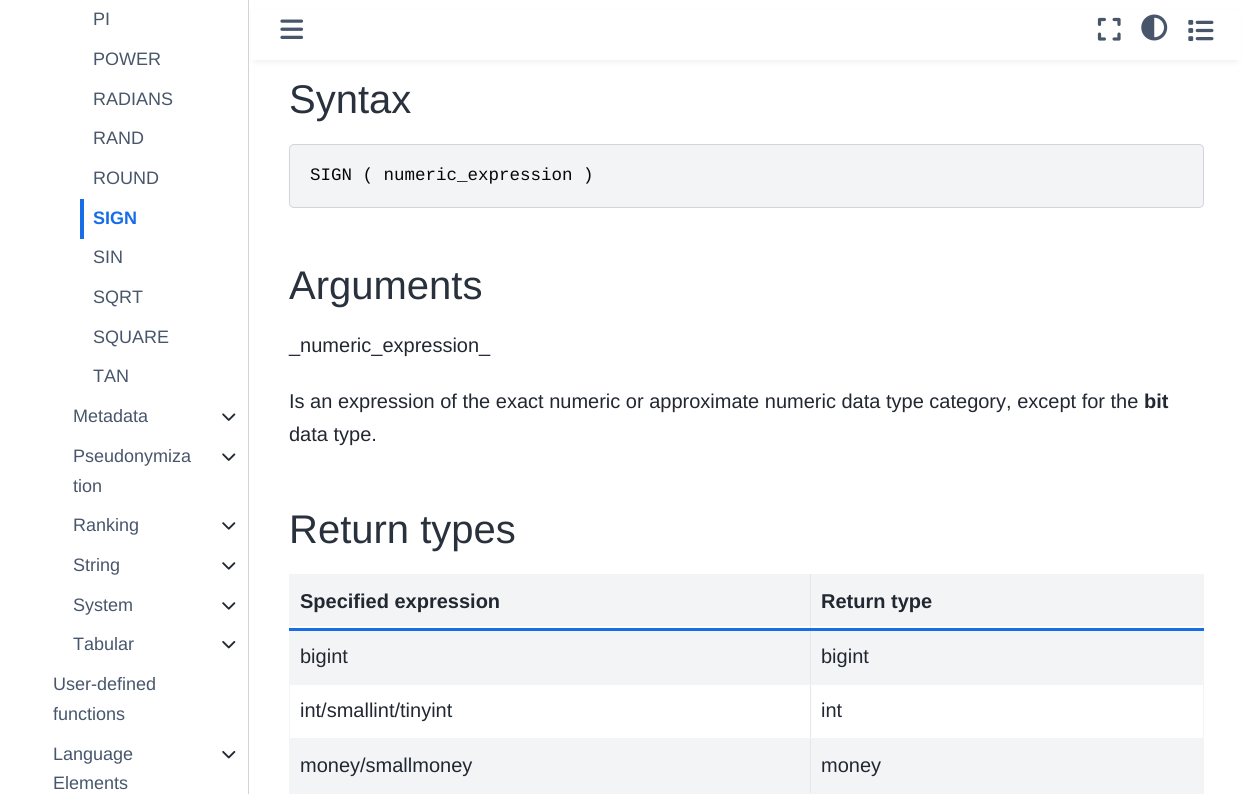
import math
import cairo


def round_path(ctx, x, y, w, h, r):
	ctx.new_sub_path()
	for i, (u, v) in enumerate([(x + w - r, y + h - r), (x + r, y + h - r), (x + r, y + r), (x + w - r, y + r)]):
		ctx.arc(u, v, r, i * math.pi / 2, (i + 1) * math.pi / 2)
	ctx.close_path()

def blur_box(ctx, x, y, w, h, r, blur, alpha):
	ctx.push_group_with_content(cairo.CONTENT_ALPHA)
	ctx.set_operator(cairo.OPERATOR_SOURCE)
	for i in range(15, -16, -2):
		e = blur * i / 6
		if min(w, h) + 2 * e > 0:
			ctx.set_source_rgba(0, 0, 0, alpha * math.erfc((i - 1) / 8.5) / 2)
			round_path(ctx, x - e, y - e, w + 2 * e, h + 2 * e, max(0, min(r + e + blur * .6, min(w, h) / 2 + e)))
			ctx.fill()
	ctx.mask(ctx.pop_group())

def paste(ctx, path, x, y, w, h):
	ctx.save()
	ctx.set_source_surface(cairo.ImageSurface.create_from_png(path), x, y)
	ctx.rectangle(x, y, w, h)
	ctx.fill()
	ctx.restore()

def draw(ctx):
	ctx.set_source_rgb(1, 1, 1)
	ctx.paint()
	ctx.set_source_rgb(0.82, 0.835, 0.855)
	ctx.rectangle(248, 0, 1, 794)
	ctx.fill()
	ctx.select_font_face('Liberation Sans')
	ctx.set_font_size(18)
	ctx.set_source_rgb(0.282, 0.337, 0.42)
	for x, y, s in [
		(93, 25, 'PI'),
		(93, 65, 'POWER'),
		(93, 105, 'RADIANS'),
		(93, 144, 'RAND'),
		(93, 184, 'ROUND'),
	]:
		ctx.move_to(x, y)
		ctx.show_text(s)
	ctx.set_source_rgb(0.09, 0.427, 0.91)
	ctx.rectangle(80, 199, 4, 40)
	ctx.fill()
	ctx.select_font_face('Liberation Sans', cairo.FONT_SLANT_NORMAL, cairo.FONT_WEIGHT_BOLD)
	ctx.move_to(93, 224)
	ctx.show_text('SIGN')
	ctx.select_font_face('Liberation Sans')
	ctx.set_source_rgb(0.282, 0.337, 0.42)
	for x, y, s in [
		(93, 263, 'SIN'),
		(93, 303, 'SQRT'),
		(93, 343, 'SQUARE'),
		(93, 382, 'TAN'),
		(73, 422, 'Metadata'),
	]:
		ctx.move_to(x, y)
		ctx.show_text(s)
	paste(ctx, 'media/1.png', 222, 413, 14, 8)
	ctx.move_to(73, 462)
	ctx.show_text('Pseudonymiza')
	ctx.move_to(73, 492)
	ctx.show_text('tion')
	paste(ctx, 'media/1.png', 222, 453, 14, 8)
	ctx.move_to(73, 531)
	ctx.show_text('Ranking')
	paste(ctx, 'media/2.png', 222, 522, 14, 8)
	ctx.move_to(73, 571)
	ctx.show_text('String')
	paste(ctx, 'media/2.png', 222, 562, 14, 8)
	ctx.move_to(73, 611)
	ctx.show_text('System')
	paste(ctx, 'media/2.png', 222, 602, 14, 8)
	ctx.move_to(73, 650)
	ctx.show_text('Tabular')
	paste(ctx, 'media/3.png', 222, 641, 14, 8)
	for x, y, s in [
		(53, 690, 'User-defined'),
		(53, 720, 'functions'),
		(53, 760, 'Language'),
		(53, 789, 'Elements'),
	]:
		ctx.move_to(x, y)
		ctx.show_text(s)
	paste(ctx, 'media/3.png', 222, 751, 14, 8)
	ctx.set_source_rgb(0, 0, 0)
	blur_box(ctx, 256, 15, 980, 45, 0, 4, 0.1)
	ctx.set_source_rgb(1, 1, 1)
	ctx.rectangle(251, 10, 990, 50)
	ctx.fill()
	paste(ctx, 'media/4.png', 280, 19, 24, 20)
	paste(ctx, 'media/5.png', 1097, 17, 24, 24)
	paste(ctx, 'media/6.png', 1141, 14, 27, 27)
	paste(ctx, 'media/7.png', 1188, 19, 26, 23)
	ctx.set_font_size(40)
	ctx.set_source_rgb(0.161, 0.192, 0.239)
	ctx.move_to(289, 113)
	ctx.show_text('Syntax')
	ctx.set_source_rgb(0.953, 0.957, 0.961)
	round_path(ctx, 289.5, 144.5, 914, 63, 4.5)
	ctx.fill_preserve()
	ctx.set_source_rgb(0.82, 0.835, 0.855)
	ctx.set_line_width(1)
	ctx.stroke()
	ctx.select_font_face('Liberation Mono')
	ctx.set_font_size(17.5)
	ctx.set_source_rgb(0.031, 0.031, 0.031)
	ctx.move_to(310, 180)
	ctx.show_text('SIGN ( numeric_expression )')
	ctx.select_font_face('Liberation Sans')
	ctx.set_font_size(40)
	ctx.set_source_rgb(0.161, 0.192, 0.239)
	ctx.move_to(289, 299)
	ctx.show_text('Arguments')
	ctx.set_font_size(20)
	ctx.set_source_rgb(0.133, 0.157, 0.196)
	ctx.move_to(289, 352)
	ctx.show_text('_numeric_expression_')
	ctx.move_to(289, 408)
	ctx.show_text('Is an expression of the exact numeric or approximate numeric data type category, except for the')
	ctx.select_font_face('Liberation Sans', cairo.FONT_SLANT_NORMAL, cairo.FONT_WEIGHT_BOLD)
	ctx.move_to(1144, 408)
	ctx.show_text('bit')
	ctx.select_font_face('Liberation Sans')
	ctx.move_to(289, 441)
	ctx.show_text('data type.')
	ctx.set_font_size(40)
	ctx.set_source_rgb(0.161, 0.192, 0.239)
	ctx.move_to(289, 543)
	ctx.show_text('Return types')
	ctx.set_source_rgb(0.953, 0.957, 0.961)
	ctx.rectangle(289, 574, 915, 1)
	ctx.rectangle(1203, 574, 1, 220)
	ctx.rectangle(289, 574, 1, 220)
	ctx.rectangle(290, 575, 913, 51)
	ctx.rectangle(290, 631, 913, 53)
	ctx.rectangle(290, 739, 913, 54)
	ctx.rectangle(810, 793, 394, 1)
	ctx.fill()
	ctx.set_source_rgb(0.898, 0.906, 0.918)
	ctx.rectangle(810, 738, 1, 56)
	ctx.fill()
	ctx.set_source_rgb(0.953, 0.957, 0.961)
	ctx.rectangle(810, 738, 394, 1)
	ctx.fill()
	ctx.set_source_rgb(0.898, 0.906, 0.918)
	ctx.rectangle(810, 684, 1, 55)
	ctx.fill()
	ctx.set_source_rgb(0.953, 0.957, 0.961)
	ctx.rectangle(810, 684, 394, 1)
	ctx.fill()
	ctx.set_source_rgb(0.898, 0.906, 0.918)
	ctx.rectangle(810, 574, 1, 111)
	ctx.fill()
	ctx.set_source_rgb(0.09, 0.427, 0.91)
	ctx.rectangle(289, 628, 915, 3)
	ctx.fill()
	ctx.select_font_face('Liberation Sans', cairo.FONT_SLANT_NORMAL, cairo.FONT_WEIGHT_BOLD)
	ctx.set_font_size(20)
	ctx.set_source_rgb(0.133, 0.157, 0.196)
	ctx.move_to(300, 608)
	ctx.show_text('Specified expression')
	ctx.move_to(821, 608)
	ctx.show_text('Return type')
	ctx.set_source_rgb(0.953, 0.957, 0.961)
	ctx.rectangle(289, 684, 522, 1)
	ctx.fill()
	ctx.select_font_face('Liberation Sans')
	ctx.set_source_rgb(0.133, 0.157, 0.196)
	ctx.move_to(300, 663)
	ctx.show_text('bigint')
	ctx.move_to(821, 663)
	ctx.show_text('bigint')
	ctx.set_source_rgb(0.953, 0.957, 0.961)
	ctx.rectangle(289, 738, 522, 1)
	ctx.fill()
	ctx.set_source_rgb(0.133, 0.157, 0.196)
	ctx.move_to(300, 717)
	ctx.show_text('int/smallint/tinyint')
	ctx.move_to(821, 717)
	ctx.show_text('int')
	ctx.set_source_rgb(0.953, 0.957, 0.961)
	ctx.rectangle(289, 793, 522, 1)
	ctx.fill()
	ctx.set_source_rgb(0.133, 0.157, 0.196)
	ctx.move_to(300, 772)
	ctx.show_text('money/smallmoney')
	ctx.move_to(821, 772)
	ctx.show_text('money')


surface = cairo.ImageSurface(cairo.FORMAT_RGB24, 1243, 794)
ctx = cairo.Context(surface)
options = cairo.FontOptions()
options.set_hint_metrics(cairo.HINT_METRICS_OFF)
options.set_hint_style(cairo.HINT_STYLE_NONE)
ctx.set_font_options(options)
ctx.set_miter_limit(4)
draw(ctx)
surface.write_to_png('image.png')
